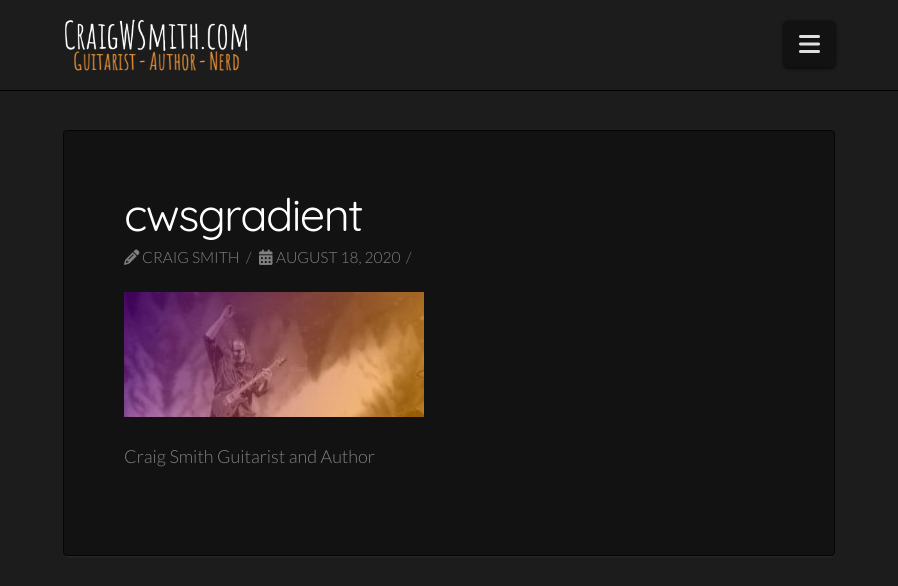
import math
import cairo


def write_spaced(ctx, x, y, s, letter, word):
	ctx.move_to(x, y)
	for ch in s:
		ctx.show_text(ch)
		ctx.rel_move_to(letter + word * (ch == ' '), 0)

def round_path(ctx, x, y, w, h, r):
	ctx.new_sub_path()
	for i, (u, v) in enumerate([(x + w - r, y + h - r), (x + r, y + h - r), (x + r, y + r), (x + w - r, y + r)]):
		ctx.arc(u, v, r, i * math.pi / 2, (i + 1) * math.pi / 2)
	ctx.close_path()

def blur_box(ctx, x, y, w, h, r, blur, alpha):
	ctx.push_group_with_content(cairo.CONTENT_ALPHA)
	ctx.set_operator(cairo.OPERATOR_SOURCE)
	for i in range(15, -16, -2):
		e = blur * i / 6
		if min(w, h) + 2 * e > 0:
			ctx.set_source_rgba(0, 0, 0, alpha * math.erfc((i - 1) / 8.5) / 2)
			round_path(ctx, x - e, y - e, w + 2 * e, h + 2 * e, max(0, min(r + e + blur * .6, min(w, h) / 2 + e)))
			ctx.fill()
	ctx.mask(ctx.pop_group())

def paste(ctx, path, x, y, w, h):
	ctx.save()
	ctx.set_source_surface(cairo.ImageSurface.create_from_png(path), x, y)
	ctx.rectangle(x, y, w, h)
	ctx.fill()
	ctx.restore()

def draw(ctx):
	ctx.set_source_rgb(0.11, 0.11, 0.11)
	ctx.paint()
	ctx.set_source_rgb(0, 0, 0)
	ctx.rectangle(0, 90, 898, 1)
	ctx.fill()
	paste(ctx, 'media/1.png', 65, 19, 183, 52)
	ctx.set_source_rgb(0, 0, 0)
	blur_box(ctx, 784, 22, 51, 46, 4, 2, 1)
	ctx.set_source_rgb(0.071, 0.071, 0.071)
	round_path(ctx, 784, 21, 51, 46, 4)
	ctx.fill()
	paste(ctx, 'media/2.png', 799, 35, 21, 18)
	ctx.set_source_rgb(1, 1, 1)
	blur_box(ctx, 65, 135, 768, 422, 2, 1, 0.07)
	ctx.set_source_rgb(0.071, 0.071, 0.071)
	round_path(ctx, 63.5, 130.5, 771, 425, 3.5)
	ctx.fill_preserve()
	ctx.set_source_rgb(0.02, 0.02, 0.02)
	ctx.set_line_width(1)
	ctx.stroke()
	ctx.select_font_face('Quicksand Light')
	ctx.set_font_size(45)
	ctx.set_source_rgb(1, 1, 1)
	write_spaced(ctx, 124, 231, 'cwsgradient', -1.5, 0)
	paste(ctx, 'media/3.png', 124, 249, 16, 16)
	ctx.select_font_face('Lato Light')
	ctx.set_font_size(15.5)
	ctx.set_source_rgb(0.506, 0.498, 0.498)
	ctx.move_to(142, 263)
	ctx.show_text('CRAIG SMITH')
	ctx.move_to(246, 263)
	ctx.show_text('/')
	paste(ctx, 'media/4.png', 259, 249, 14, 16)
	ctx.move_to(276, 263)
	ctx.show_text('AUGUST 18, 2020')
	ctx.move_to(406, 263)
	ctx.show_text('/')
	paste(ctx, 'media/5.png', 124, 292, 300, 125)
	ctx.set_font_size(18)
	ctx.move_to(124, 463)
	ctx.show_text('Craig Smith Guitarist and Author')


surface = cairo.ImageSurface(cairo.FORMAT_RGB24, 898, 586)
ctx = cairo.Context(surface)
options = cairo.FontOptions()
options.set_hint_metrics(cairo.HINT_METRICS_OFF)
options.set_hint_style(cairo.HINT_STYLE_NONE)
ctx.set_font_options(options)
ctx.set_miter_limit(4)
draw(ctx)
surface.write_to_png('image.png')
